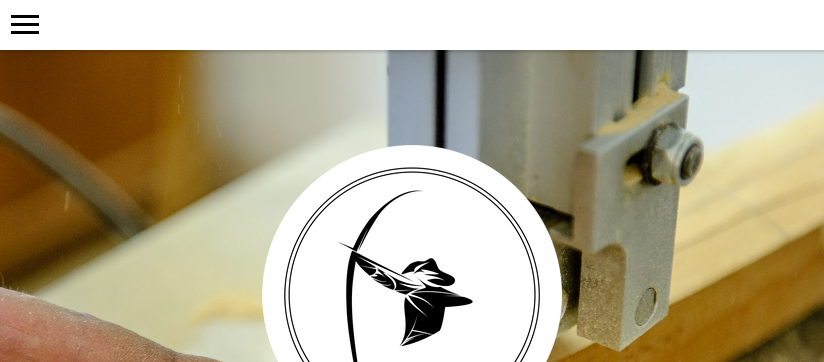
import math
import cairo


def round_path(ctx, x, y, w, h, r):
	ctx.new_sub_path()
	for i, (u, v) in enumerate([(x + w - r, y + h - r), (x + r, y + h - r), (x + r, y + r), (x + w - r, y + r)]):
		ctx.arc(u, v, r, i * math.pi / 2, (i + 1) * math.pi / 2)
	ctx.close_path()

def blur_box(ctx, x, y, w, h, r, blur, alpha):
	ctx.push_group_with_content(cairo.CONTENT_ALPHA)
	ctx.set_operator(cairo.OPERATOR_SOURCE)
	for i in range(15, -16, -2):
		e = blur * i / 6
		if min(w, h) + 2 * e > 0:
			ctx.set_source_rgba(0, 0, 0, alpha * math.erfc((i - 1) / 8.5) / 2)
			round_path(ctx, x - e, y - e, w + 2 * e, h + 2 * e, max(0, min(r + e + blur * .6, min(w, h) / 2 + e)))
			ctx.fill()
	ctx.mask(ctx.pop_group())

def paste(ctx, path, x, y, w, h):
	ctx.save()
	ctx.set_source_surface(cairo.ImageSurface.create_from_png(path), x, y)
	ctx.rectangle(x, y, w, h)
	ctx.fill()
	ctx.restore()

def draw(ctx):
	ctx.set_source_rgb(1, 1, 1)
	ctx.paint()
	paste(ctx, 'media/1.png', 0, 50, 824, 312)
	ctx.save()
	ctx.rectangle(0, 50, 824, 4)
	ctx.clip()
	ctx.set_source_rgb(0, 0, 0)
	blur_box(ctx, 0, 2, 824, 50, 0, 1.5, 0.16)
	ctx.restore()
	ctx.set_source_rgb(0, 0, 0)
	ctx.rectangle(11, 23, 28, 3)
	ctx.rectangle(11, 15, 28, 3)
	ctx.rectangle(11, 31, 28, 3)
	ctx.fill()
	paste(ctx, 'media/2.png', 262, 145, 300, 217)


surface = cairo.ImageSurface(cairo.FORMAT_RGB24, 824, 362)
ctx = cairo.Context(surface)
options = cairo.FontOptions()
options.set_hint_metrics(cairo.HINT_METRICS_OFF)
options.set_hint_style(cairo.HINT_STYLE_NONE)
ctx.set_font_options(options)
ctx.set_miter_limit(4)
draw(ctx)
surface.write_to_png('image.png')
